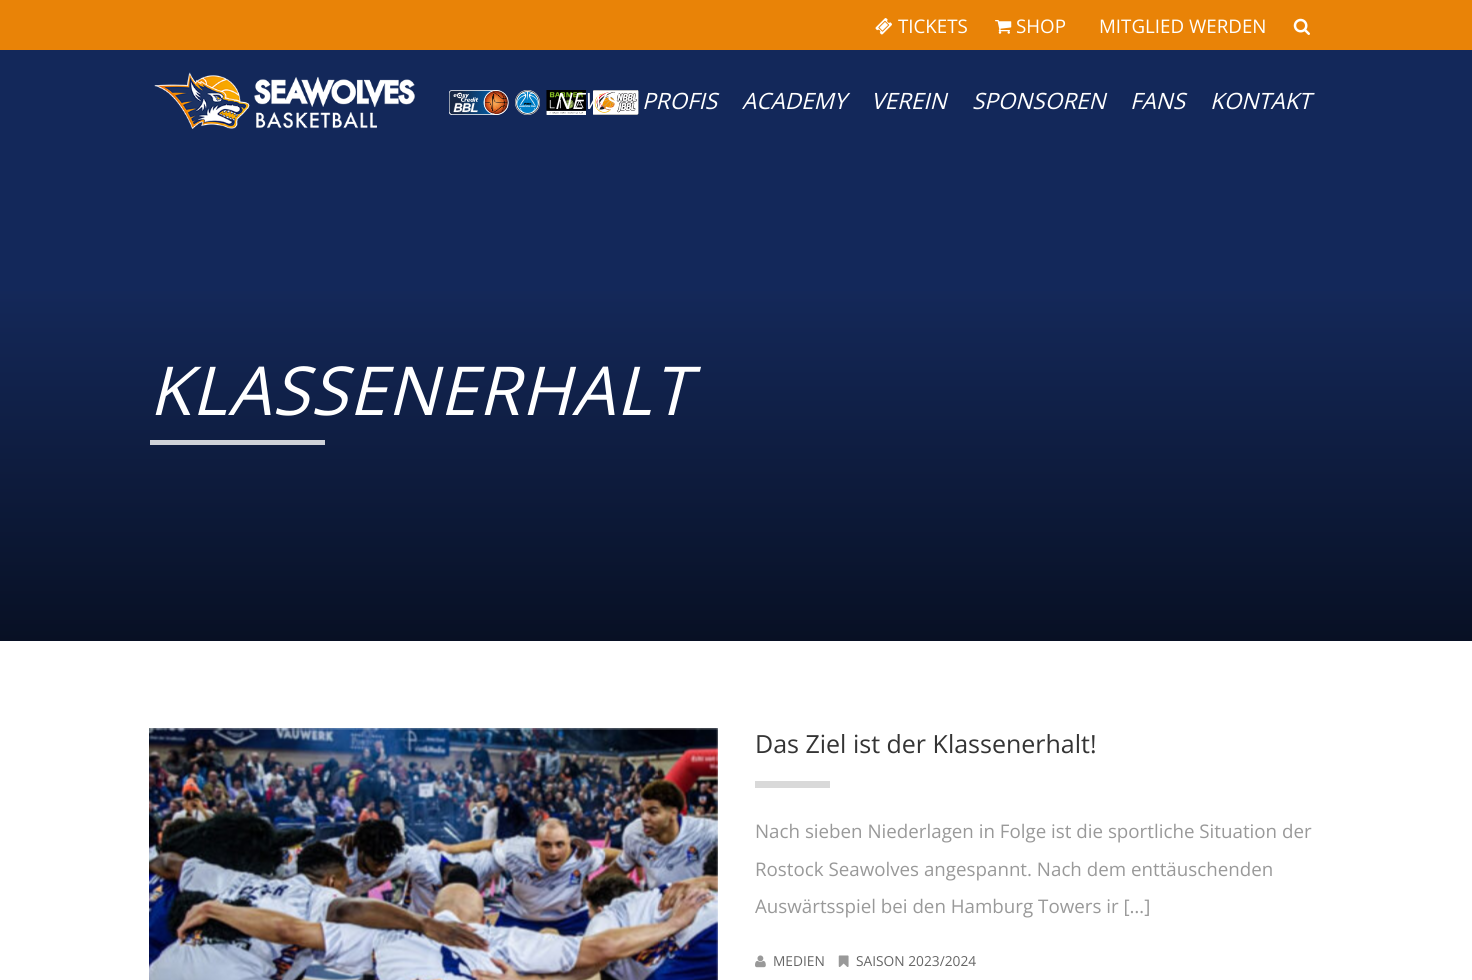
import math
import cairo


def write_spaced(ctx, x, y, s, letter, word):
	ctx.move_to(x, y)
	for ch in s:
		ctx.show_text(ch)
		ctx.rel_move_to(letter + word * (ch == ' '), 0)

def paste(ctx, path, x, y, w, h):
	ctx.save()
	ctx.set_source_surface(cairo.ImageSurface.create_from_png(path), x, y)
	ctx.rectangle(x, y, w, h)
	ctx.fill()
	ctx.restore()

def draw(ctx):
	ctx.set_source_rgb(1, 1, 1)
	ctx.paint()
	ctx.set_source_rgb(0.914, 0.514, 0.031)
	ctx.rectangle(0, 0, 1472, 50)
	ctx.fill()
	paste(ctx, 'media/1.png', 875, 18, 17, 17)
	ctx.select_font_face('Open Sans')
	ctx.set_font_size(18.75)
	ctx.set_source_rgb(1, 1, 1)
	ctx.move_to(898, 33)
	ctx.show_text('TICKETS')
	paste(ctx, 'media/2.png', 995, 20, 17, 14)
	ctx.move_to(1016, 33)
	ctx.show_text('SHOP')
	ctx.move_to(1099, 33)
	ctx.show_text('MITGLIED WERDEN')
	paste(ctx, 'media/3.png', 1293, 18, 17, 17)
	ctx.set_source_rgb(0.078, 0.157, 0.353)
	ctx.rectangle(0, 50, 1472, 241)
	ctx.fill()
	paste(ctx, 'media/4.png', 154, 72, 261, 57)
	paste(ctx, 'media/5.png', 449, 90, 60, 25)
	paste(ctx, 'media/6.png', 515, 90, 25, 25)
	paste(ctx, 'media/7.png', 546, 90, 40, 25)
	paste(ctx, 'media/8.png', 593, 90, 46, 25)
	ctx.select_font_face('Open Sans', cairo.FONT_SLANT_ITALIC)
	ctx.set_font_size(22.5)
	ctx.set_source_rgb(1, 1, 1)
	for x, y, s in [
		(554, 109, 'NEWS'),
		(642, 109, 'PROFIS'),
		(742, 109, 'ACADEMY'),
		(871, 109, 'VEREIN'),
		(972, 109, 'SPONSOREN'),
		(1130, 109, 'FANS'),
		(1210, 109, 'KONTAKT'),
	]:
		ctx.move_to(x, y)
		ctx.show_text(s)
	gradient = cairo.LinearGradient(736, 291, 736, 641)
	gradient.add_color_stop_rgba(0, 0.078, 0.157, 0.349, 1)
	gradient.add_color_stop_rgba(1, 0.031, 0.063, 0.141, 1)
	ctx.set_source(gradient)
	ctx.rectangle(0, 291, 1472, 350)
	ctx.fill()
	ctx.set_font_size(67.5)
	ctx.set_source_rgb(1, 1, 1)
	write_spaced(ctx, 149, 415, 'KLASSENERHALT', 1.25, 0)
	ctx.set_source_rgb(0.812, 0.824, 0.851)
	ctx.rectangle(150, 440, 175, 5)
	ctx.fill()
	paste(ctx, 'media/9.png', 149, 728, 569, 252)
	ctx.select_font_face('Open Sans')
	ctx.set_font_size(25)
	ctx.set_source_rgb(0.204, 0.204, 0.204)
	ctx.move_to(755, 753)
	ctx.show_text('Das Ziel ist der Klassenerhalt!')
	ctx.set_source_rgb(0.851, 0.851, 0.851)
	ctx.rectangle(755, 781, 75, 7)
	ctx.fill()
	ctx.set_font_size(18.75)
	ctx.set_source_rgb(0.6, 0.6, 0.6)
	for x, y, s in [
		(755, 838, 'Nach sieben Niederlagen in Folge ist die sportliche Situation der'),
		(755, 876, 'Rostock Seawolves angespannt. Nach dem enttäuschenden'),
		(755, 913, 'Auswärtsspiel bei den Hamburg Towers ir […]'),
	]:
		ctx.move_to(x, y)
		ctx.show_text(s)
	paste(ctx, 'media/10.png', 755, 955, 11, 13)
	ctx.set_font_size(13.75)
	ctx.set_source_rgb(0.4, 0.4, 0.4)
	ctx.move_to(773, 966)
	ctx.show_text('MEDIEN')
	paste(ctx, 'media/11.png', 838, 955, 11, 12)
	ctx.move_to(856, 966)
	ctx.show_text('SAISON 2023/2024')


surface = cairo.ImageSurface(cairo.FORMAT_RGB24, 1472, 980)
ctx = cairo.Context(surface)
options = cairo.FontOptions()
options.set_hint_metrics(cairo.HINT_METRICS_OFF)
options.set_hint_style(cairo.HINT_STYLE_NONE)
ctx.set_font_options(options)
ctx.set_miter_limit(4)
draw(ctx)
surface.write_to_png('image.png')
